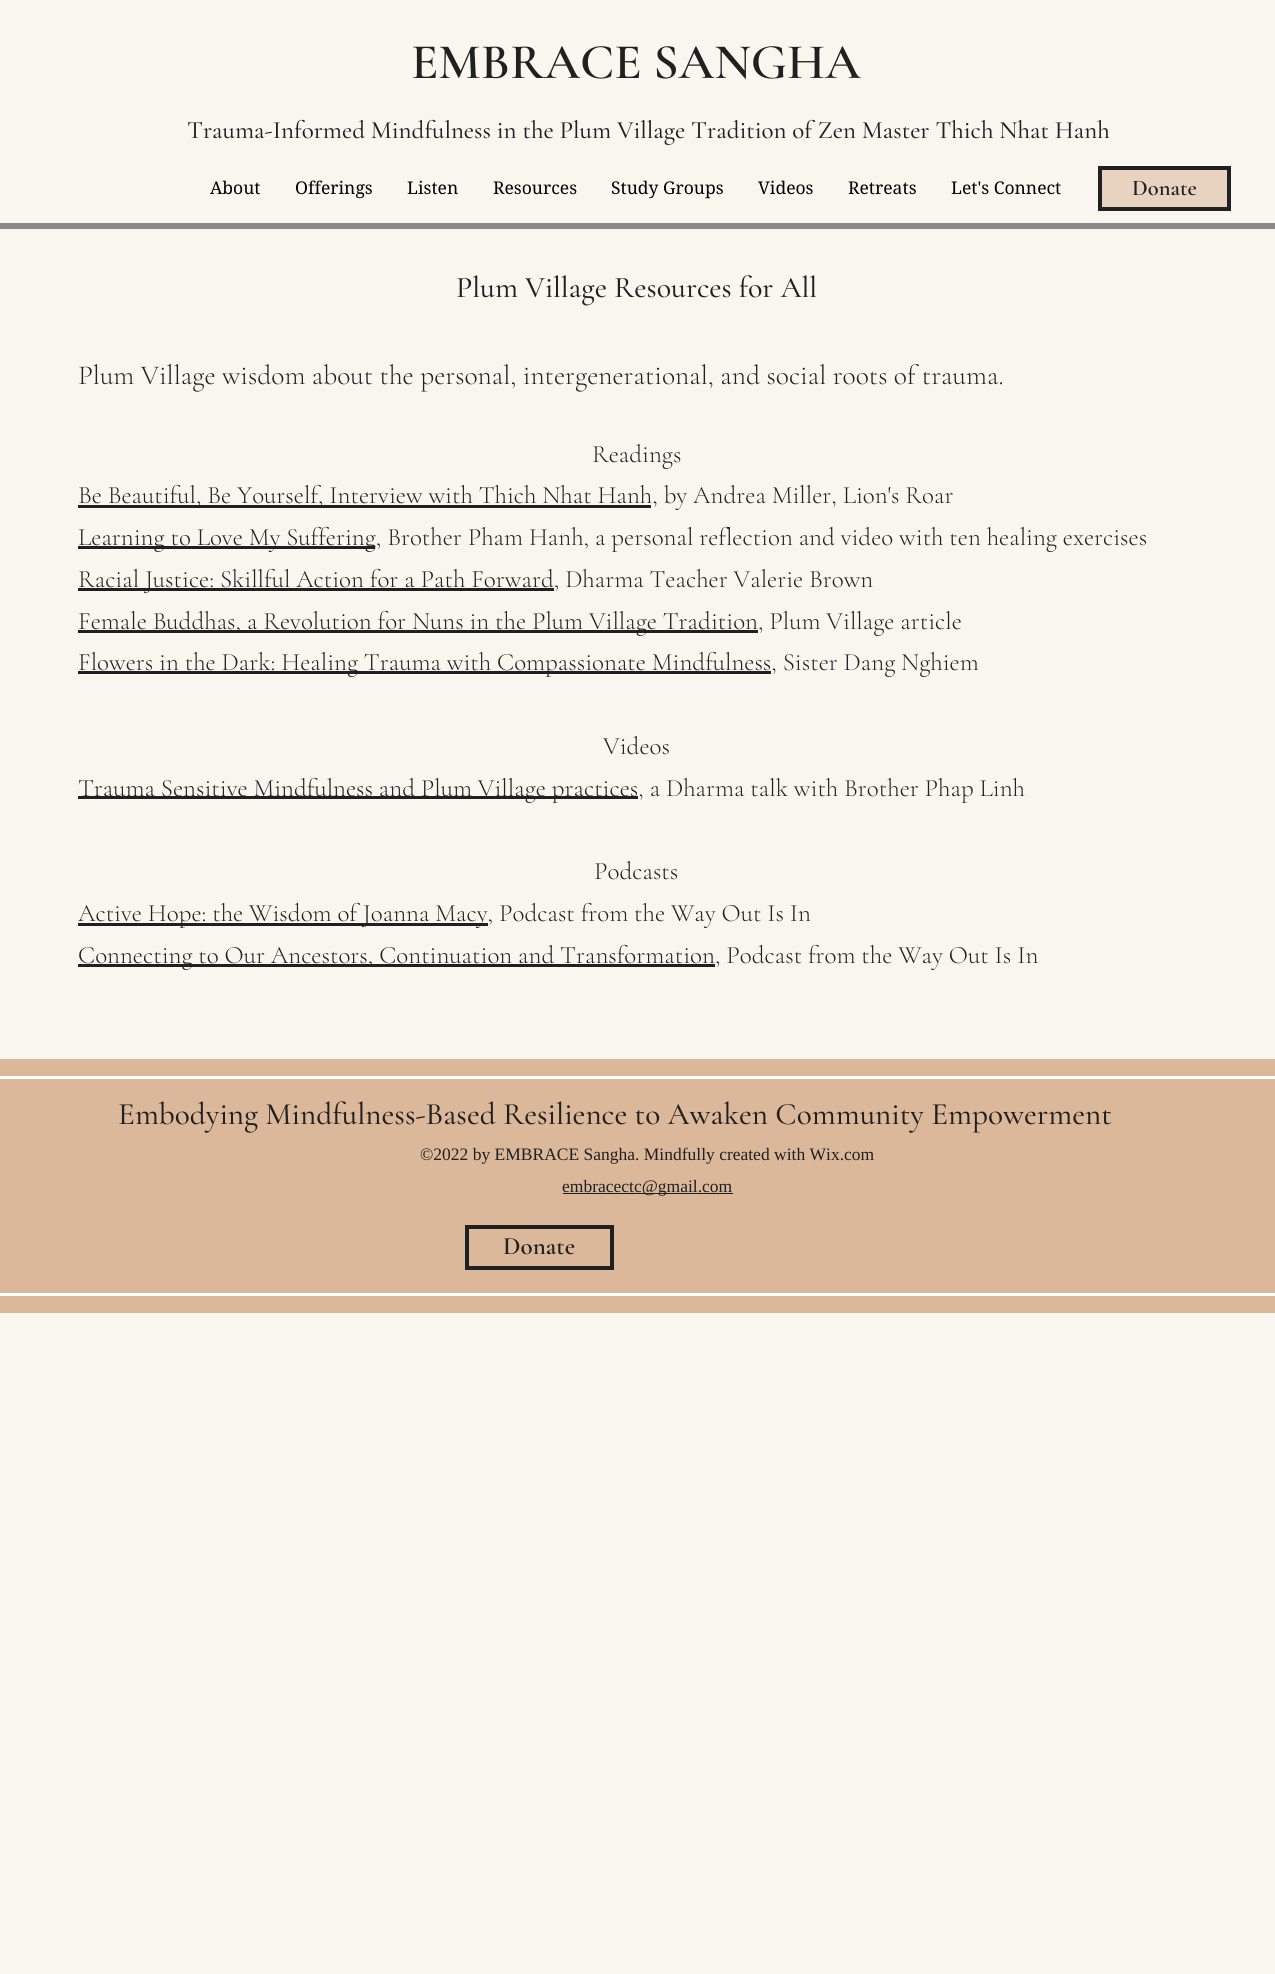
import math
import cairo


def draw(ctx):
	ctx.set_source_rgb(0.969, 0.961, 0.933)
	ctx.paint()
	ctx.select_font_face('Cormorant Garamond SemiBold')
	ctx.set_font_size(50)
	ctx.set_source_rgb(0.125, 0.125, 0.125)
	ctx.move_to(411, 78)
	ctx.show_text('EMBRACE SANGHA')
	ctx.select_font_face('Cormorant Garamond Medium')
	ctx.set_font_size(25)
	ctx.move_to(187, 138)
	ctx.show_text('Trauma-Informed Mindfulness in the Plum Village Tradition of Zen Master Thich Nhat Hanh')
	ctx.select_font_face('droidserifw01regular')
	ctx.set_font_size(17.5)
	ctx.set_source_rgb(0, 0, 0)
	for x, y, s in [
		(210, 194, 'About'),
		(295, 194, 'Offerings'),
		(407, 194, 'Listen'),
		(493, 194, 'Resources'),
		(611, 194, 'Study Groups'),
		(758, 194, 'Videos'),
		(848, 194, 'Retreats'),
		(951, 194, 'Let\'s Connect'),
	]:
		ctx.move_to(x, y)
		ctx.show_text(s)
	ctx.set_source_rgb(0.906, 0.827, 0.749)
	ctx.rectangle(1100, 168, 129, 41)
	ctx.fill_preserve()
	ctx.set_source_rgb(0.125, 0.125, 0.125)
	ctx.set_line_width(4)
	ctx.stroke()
	ctx.select_font_face('Cormorant Garamond SemiBold')
	ctx.set_font_size(22.5)
	ctx.move_to(1132, 195)
	ctx.show_text('Donate')
	ctx.set_source_rgb(0.537, 0.537, 0.537)
	ctx.rectangle(0, 223, 1275, 6)
	ctx.fill()
	ctx.select_font_face('Cormorant Garamond Medium')
	ctx.set_font_size(30)
	ctx.set_source_rgb(0.125, 0.125, 0.125)
	ctx.move_to(456, 297)
	ctx.show_text('Plum Village Resources for All')
	ctx.select_font_face('Cormorant Garamond Light')
	ctx.set_font_size(27.5)
	ctx.move_to(78, 384)
	ctx.show_text('Plum Village wisdom about the personal, intergenerational, and social roots of trauma.')
	ctx.set_font_size(25)
	ctx.move_to(592, 462)
	ctx.show_text('Readings')
	ctx.rectangle(78, 505, 573, 3)
	ctx.fill()
	ctx.move_to(78, 503)
	ctx.show_text('Be Beautiful, Be Yourself, Interview with Thich Nhat Hanh, by Andrea Miller, Lion\'s Roar')
	ctx.rectangle(78, 546, 297, 3)
	ctx.fill()
	ctx.move_to(78, 545)
	ctx.show_text('Learning to Love My Suffering, Brother Pham Hanh, a personal reflection and video with ten healing exercises')
	ctx.rectangle(78, 588, 476, 3)
	ctx.fill()
	ctx.move_to(78, 587)
	ctx.show_text('Racial Justice: Skillful Action for a Path Forward, Dharma Teacher Valerie Brown')
	ctx.rectangle(78, 630, 680, 3)
	ctx.fill()
	ctx.move_to(78, 629)
	ctx.show_text('Female Buddhas, a Revolution for Nuns in the Plum Village Tradition, Plum Village article')
	ctx.rectangle(78, 671, 693, 3)
	ctx.fill()
	ctx.move_to(78, 670)
	ctx.show_text('Flowers in the Dark: Healing Trauma with Compassionate Mindfulness, Sister Dang Nghiem')
	ctx.move_to(603, 754)
	ctx.show_text('Videos')
	ctx.rectangle(78, 796, 560, 3)
	ctx.fill()
	ctx.move_to(78, 796)
	ctx.show_text('Trauma Sensitive Mindfulness and Plum Village practices, a Dharma talk with Brother Phap Linh')
	ctx.move_to(594, 879)
	ctx.show_text('Podcasts')
	ctx.rectangle(78, 923, 410, 3)
	ctx.fill()
	ctx.move_to(78, 921)
	ctx.show_text('Active Hope: the Wisdom of Joanna Macy, Podcast from the Way Out Is In')
	ctx.rectangle(78, 964, 637, 3)
	ctx.fill()
	ctx.move_to(78, 963)
	ctx.show_text('Connecting to Our Ancestors, Continuation and Transformation, Podcast from the Way Out Is In')
	ctx.set_source_rgb(0.859, 0.722, 0.604)
	ctx.rectangle(0, 1059, 1275, 254)
	ctx.fill()
	ctx.set_source_rgb(1, 1, 1)
	ctx.rectangle(0, 1076, 1275, 3)
	ctx.rectangle(0, 1293, 1275, 3)
	ctx.fill()
	ctx.select_font_face('Cormorant Garamond Medium')
	ctx.set_font_size(31.25)
	ctx.set_source_rgb(0.125, 0.125, 0.125)
	ctx.move_to(118, 1124)
	ctx.show_text('Embodying Mindfulness-Based Resilience to Awaken Community Empowerment')
	ctx.select_font_face('Liberation Serif')
	ctx.set_font_size(17.5)
	ctx.move_to(420, 1160)
	ctx.show_text('©2022 by EMBRACE Sangha. Mindfully created with Wix.com')
	ctx.rectangle(563, 1193, 170, 1)
	ctx.fill()
	ctx.move_to(562, 1192)
	ctx.show_text('embracectc@gmail.com')
	ctx.rectangle(467, 1227, 145, 41)
	ctx.stroke()
	ctx.select_font_face('Cormorant Garamond SemiBold')
	ctx.set_font_size(25)
	ctx.move_to(503, 1254)
	ctx.show_text('Donate')


surface = cairo.ImageSurface(cairo.FORMAT_RGB24, 1275, 1974)
ctx = cairo.Context(surface)
options = cairo.FontOptions()
options.set_hint_metrics(cairo.HINT_METRICS_OFF)
options.set_hint_style(cairo.HINT_STYLE_NONE)
ctx.set_font_options(options)
ctx.set_miter_limit(4)
draw(ctx)
surface.write_to_png('image.png')
